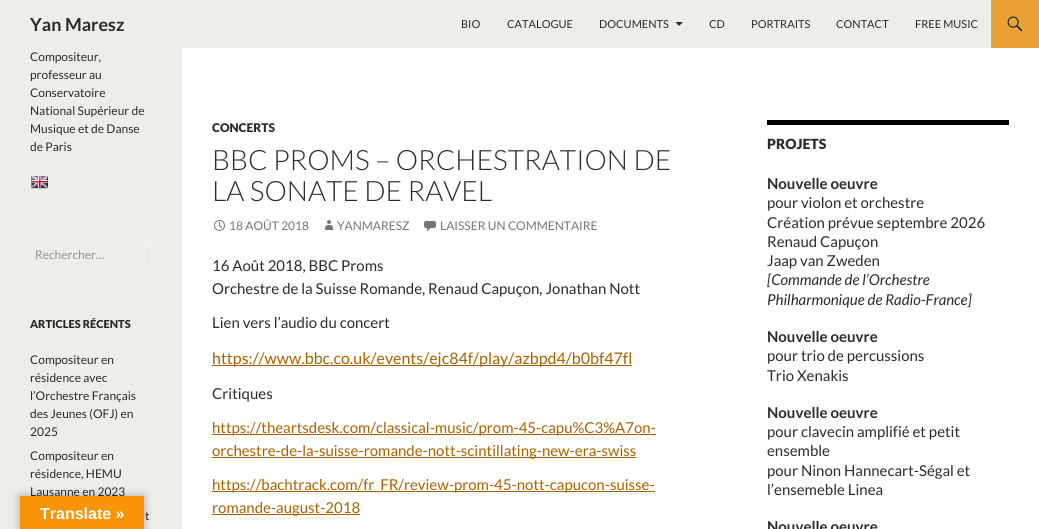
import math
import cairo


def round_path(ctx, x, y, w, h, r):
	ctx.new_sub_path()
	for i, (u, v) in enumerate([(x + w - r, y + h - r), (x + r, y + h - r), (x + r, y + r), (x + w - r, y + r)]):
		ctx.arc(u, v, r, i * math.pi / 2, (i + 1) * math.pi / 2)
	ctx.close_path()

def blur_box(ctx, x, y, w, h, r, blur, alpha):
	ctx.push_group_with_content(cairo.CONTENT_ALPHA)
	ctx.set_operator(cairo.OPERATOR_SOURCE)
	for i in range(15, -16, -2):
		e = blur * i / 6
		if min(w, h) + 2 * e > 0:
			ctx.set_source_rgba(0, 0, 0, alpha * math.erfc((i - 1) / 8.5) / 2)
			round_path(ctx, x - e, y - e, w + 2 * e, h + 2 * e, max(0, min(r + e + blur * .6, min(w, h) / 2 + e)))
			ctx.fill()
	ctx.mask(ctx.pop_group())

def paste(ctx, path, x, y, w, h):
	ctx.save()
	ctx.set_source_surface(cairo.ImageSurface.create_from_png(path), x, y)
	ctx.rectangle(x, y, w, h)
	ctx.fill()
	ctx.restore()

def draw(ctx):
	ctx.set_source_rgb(1, 1, 1)
	ctx.paint()
	ctx.set_source_rgb(0.933, 0.929, 0.91)
	ctx.rectangle(0, 0, 991, 48)
	ctx.fill()
	ctx.select_font_face('Lato', cairo.FONT_SLANT_NORMAL, cairo.FONT_WEIGHT_BOLD)
	ctx.set_font_size(18)
	ctx.set_source_rgb(0.169, 0.169, 0.169)
	ctx.move_to(30, 31)
	ctx.show_text('Yan Maresz')
	ctx.select_font_face('Lato')
	ctx.set_font_size(11)
	for x, y, s in [
		(461, 28, 'BIO'),
		(507, 28, 'CATALOGUE'),
		(599, 28, 'DOCUMENTS'),
	]:
		ctx.move_to(x, y)
		ctx.show_text(s)
	ctx.new_path()
	ctx.move_to(675.5, 22)
	ctx.line_to(679, 26)
	ctx.line_to(683, 22)
	ctx.close_path()
	ctx.fill()
	for x, y, s in [
		(709, 28, 'CD'),
		(751, 28, 'PORTRAITS'),
		(836, 28, 'CONTACT'),
		(915, 28, 'FREE MUSIC'),
	]:
		ctx.move_to(x, y)
		ctx.show_text(s)
	ctx.set_source_rgb(0.918, 0.635, 0.208)
	ctx.rectangle(991, 0, 48, 48)
	ctx.fill()
	paste(ctx, 'media/1.png', 1007, 16, 16, 16)
	ctx.set_source_rgb(0.933, 0.929, 0.91)
	ctx.rectangle(0, 48, 182, 481)
	ctx.fill()
	ctx.set_font_size(12)
	ctx.set_source_rgb(0.169, 0.169, 0.169)
	for x, y, s in [
		(30, 61, 'Compositeur,'),
		(30, 79, 'professeur au'),
		(30, 97, 'Conservatoire'),
		(30, 115, 'National Supérieur de'),
		(30, 133, 'Musique et de Danse'),
		(30, 151, 'de Paris'),
	]:
		ctx.move_to(x, y)
		ctx.show_text(s)
	paste(ctx, 'media/2.png', 31, 176, 17, 13)
	round_path(ctx, 30.5, 243.5, 121, 23, 1.5)
	ctx.set_source_rgb(0.953, 0.949, 0.933)
	ctx.set_line_width(1)
	ctx.stroke()
	ctx.set_source_rgb(0.576, 0.576, 0.576)
	ctx.move_to(35, 259)
	ctx.show_text('Rechercher…')
	ctx.select_font_face('Lato Black')
	ctx.set_font_size(11)
	ctx.set_source_rgb(0.169, 0.169, 0.169)
	ctx.move_to(30, 328)
	ctx.show_text('ARTICLES RÉCENTS')
	ctx.select_font_face('Lato')
	ctx.set_font_size(12)
	for x, y, s in [
		(30, 364, 'Compositeur en'),
		(30, 382, 'résidence avec'),
		(30, 400, 'l’Orchestre Français'),
		(30, 418, 'des Jeunes (OFJ) en'),
		(30, 436, '2025'),
		(30, 460, 'Compositeur en'),
		(30, 478, 'résidence, HEMU'),
		(30, 496, 'Lausanne en 2023'),
		(145, 520, 't'),
	]:
		ctx.move_to(x, y)
		ctx.show_text(s)
	ctx.select_font_face('Lato Black')
	ctx.move_to(212, 132)
	ctx.show_text('CONCERTS')
	ctx.select_font_face('Lato Light')
	ctx.set_font_size(28)
	ctx.move_to(212, 170)
	ctx.show_text('BBC PROMS – ORCHESTRATION DE')
	ctx.move_to(212, 201)
	ctx.show_text('LA SONATE DE RAVEL')
	paste(ctx, 'media/3.png', 214, 220, 11, 11)
	ctx.select_font_face('Lato')
	ctx.set_font_size(12)
	ctx.set_source_rgb(0.463, 0.463, 0.463)
	ctx.move_to(229, 230)
	ctx.show_text('18 AOÛT 2018')
	paste(ctx, 'media/4.png', 325, 220, 8, 10)
	ctx.move_to(337, 230)
	ctx.show_text('YANMARESZ')
	paste(ctx, 'media/5.png', 424, 221, 12, 11)
	ctx.move_to(440, 230)
	ctx.show_text('LAISSER UN COMMENTAIRE')
	ctx.set_font_size(15)
	ctx.set_source_rgb(0.169, 0.169, 0.169)
	for x, y, s in [
		(212, 271, '16 Août 2018, BBC Proms'),
		(212, 294, 'Orchestre de la Suisse Romande, Renaud Capuçon, Jonathan Nott'),
		(212, 328, 'Lien vers l’audio du concert'),
	]:
		ctx.move_to(x, y)
		ctx.show_text(s)
	ctx.set_source_rgb(0.663, 0.38, 0)
	ctx.rectangle(212, 365, 420, 1)
	ctx.fill()
	ctx.set_font_size(16)
	ctx.move_to(212, 364)
	ctx.show_text('https://www.bbc.co.uk/events/ejc84f/play/azbpd4/b0bf47fl')
	ctx.set_font_size(15)
	ctx.set_source_rgb(0.169, 0.169, 0.169)
	ctx.move_to(212, 399)
	ctx.show_text('Critiques')
	ctx.set_source_rgb(0.663, 0.38, 0)
	ctx.rectangle(212, 434, 444, 1)
	ctx.fill()
	ctx.move_to(212, 433)
	ctx.show_text('https://theartsdesk.com/classical-music/prom-45-capu%C3%A7on-')
	ctx.rectangle(212, 457, 424, 1)
	ctx.fill()
	ctx.move_to(212, 456)
	ctx.show_text('orchestre-de-la-suisse-romande-nott-scintillating-new-era-swiss')
	ctx.rectangle(212, 491, 443, 1)
	ctx.fill()
	ctx.move_to(212, 490)
	ctx.show_text('https://bachtrack.com/fr_FR/review-prom-45-nott-capucon-suisse-')
	ctx.rectangle(212, 514, 148, 1)
	ctx.fill()
	ctx.move_to(212, 513)
	ctx.show_text('romande-august-2018')
	ctx.set_source_rgb(0, 0, 0)
	ctx.rectangle(767, 120, 242, 5)
	ctx.fill()
	ctx.select_font_face('Lato Black')
	ctx.set_font_size(14)
	ctx.set_source_rgb(0.169, 0.169, 0.169)
	ctx.move_to(767, 149)
	ctx.show_text('PROJETS')
	ctx.select_font_face('Lato', cairo.FONT_SLANT_NORMAL, cairo.FONT_WEIGHT_BOLD)
	ctx.set_font_size(15)
	ctx.move_to(767, 189)
	ctx.show_text('Nouvelle oeuvre')
	ctx.select_font_face('Lato')
	for x, y, s in [
		(767, 208, 'pour violon et orchestre'),
		(767, 228, 'Création prévue septembre 2026'),
		(767, 247, 'Renaud Capuçon'),
		(767, 266, 'Jaap van Zweden'),
	]:
		ctx.move_to(x, y)
		ctx.show_text(s)
	ctx.select_font_face('Lato', cairo.FONT_SLANT_ITALIC)
	ctx.move_to(767, 285)
	ctx.show_text('[Commande de l’Orchestre')
	ctx.move_to(767, 305)
	ctx.show_text('Philharmonique de Radio-France]')
	ctx.select_font_face('Lato', cairo.FONT_SLANT_NORMAL, cairo.FONT_WEIGHT_BOLD)
	ctx.move_to(767, 342)
	ctx.show_text('Nouvelle oeuvre')
	ctx.select_font_face('Lato')
	ctx.move_to(767, 361)
	ctx.show_text('pour trio de percussions')
	ctx.move_to(767, 381)
	ctx.show_text('Trio Xenakis')
	ctx.select_font_face('Lato', cairo.FONT_SLANT_NORMAL, cairo.FONT_WEIGHT_BOLD)
	ctx.move_to(767, 418)
	ctx.show_text('Nouvelle oeuvre')
	ctx.select_font_face('Lato')
	for x, y, s in [
		(767, 437, 'pour clavecin amplifié et petit'),
		(767, 456, 'ensemble'),
		(767, 476, 'pour Ninon Hannecart-Ségal et'),
		(767, 495, 'l’ensemeble Linea'),
	]:
		ctx.move_to(x, y)
		ctx.show_text(s)
	ctx.select_font_face('Lato', cairo.FONT_SLANT_NORMAL, cairo.FONT_WEIGHT_BOLD)
	ctx.move_to(767, 532)
	ctx.show_text('Nouvelle oeuvre')
	ctx.set_source_rgb(0, 0, 0)
	blur_box(ctx, 20, 496, 124, 33, 0, 4.5, 0.3)
	ctx.set_source_rgb(0.973, 0.58, 0.024)
	ctx.rectangle(20, 496, 124, 33)
	ctx.fill()
	ctx.select_font_face('Liberation Sans', cairo.FONT_SLANT_NORMAL, cairo.FONT_WEIGHT_BOLD)
	ctx.set_font_size(16)
	ctx.set_source_rgb(1, 1, 1)
	ctx.move_to(40, 519)
	ctx.show_text('Translate »')


surface = cairo.ImageSurface(cairo.FORMAT_RGB24, 1039, 529)
ctx = cairo.Context(surface)
options = cairo.FontOptions()
options.set_hint_metrics(cairo.HINT_METRICS_OFF)
options.set_hint_style(cairo.HINT_STYLE_NONE)
ctx.set_font_options(options)
ctx.set_miter_limit(4)
draw(ctx)
surface.write_to_png('image.png')
